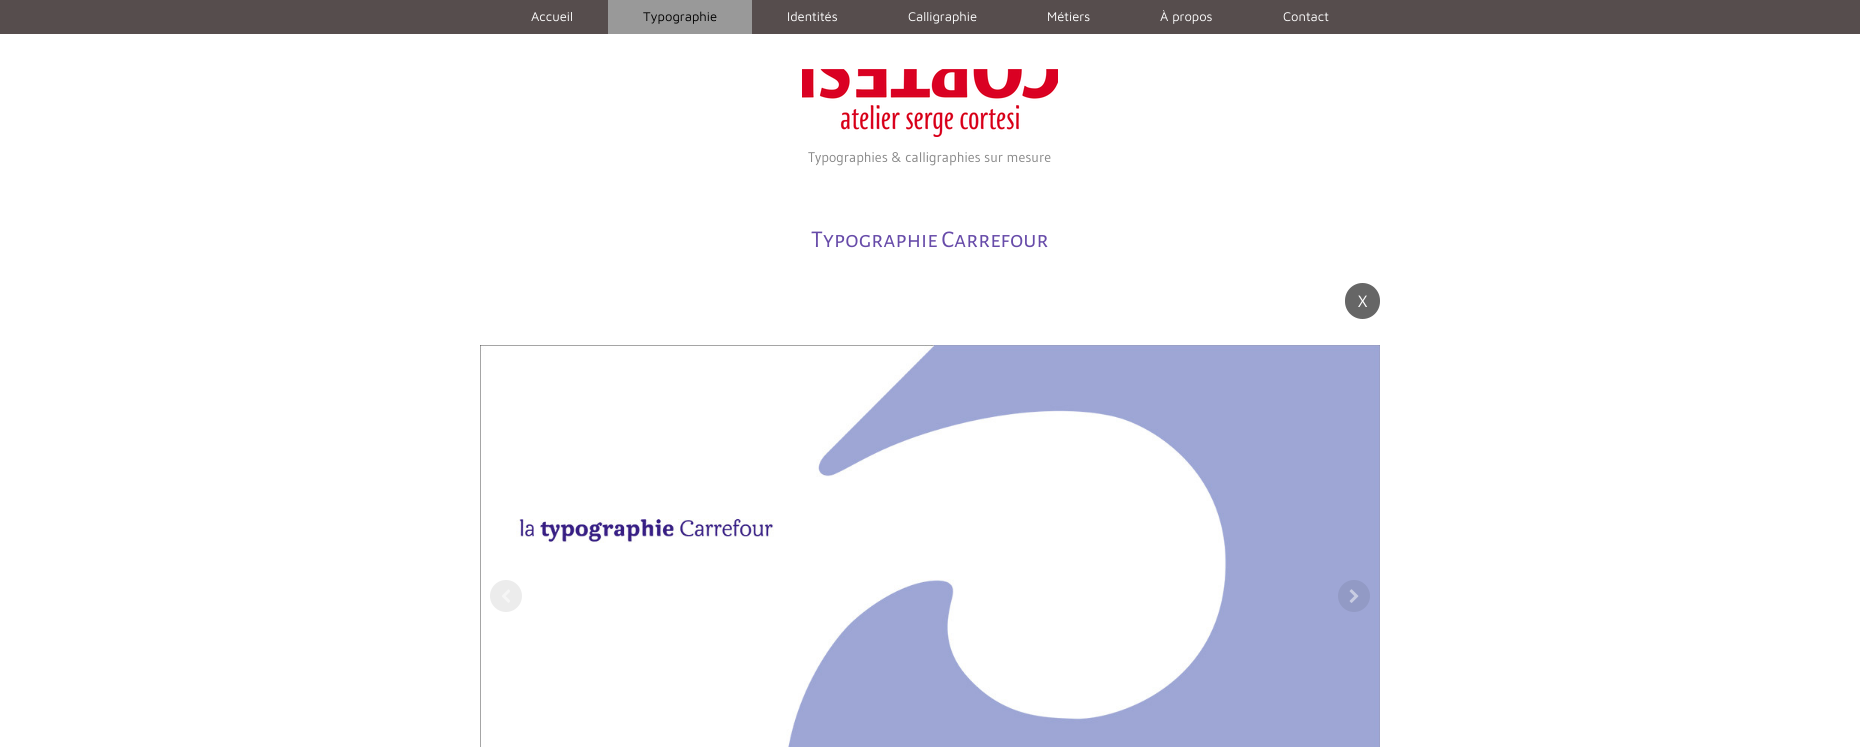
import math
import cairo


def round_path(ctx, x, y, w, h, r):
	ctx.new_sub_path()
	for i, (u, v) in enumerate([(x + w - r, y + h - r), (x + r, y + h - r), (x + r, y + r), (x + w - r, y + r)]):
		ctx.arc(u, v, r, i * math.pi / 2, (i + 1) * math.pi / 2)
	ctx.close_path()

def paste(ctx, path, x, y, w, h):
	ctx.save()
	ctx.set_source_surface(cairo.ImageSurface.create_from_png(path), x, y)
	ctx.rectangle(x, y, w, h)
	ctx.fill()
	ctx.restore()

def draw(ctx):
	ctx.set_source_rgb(1, 1, 1)
	ctx.paint()
	ctx.set_source_rgb(0.337, 0.302, 0.302)
	ctx.rectangle(0, 0, 1860, 34)
	ctx.fill()
	ctx.select_font_face('Maven Pro')
	ctx.set_font_size(13)
	ctx.set_source_rgb(1, 1, 1)
	ctx.move_to(531, 21)
	ctx.show_text('Accueil')
	ctx.set_source_rgb(0.6, 0.6, 0.6)
	ctx.rectangle(608, 0, 144, 34)
	ctx.fill()
	ctx.set_source_rgb(0, 0, 0)
	ctx.move_to(643, 21)
	ctx.show_text('Typographie')
	ctx.set_source_rgb(1, 1, 1)
	for x, y, s in [
		(787, 21, 'Identités'),
		(908, 21, 'Calligraphie'),
		(1047, 21, 'Métiers'),
		(1160, 21, 'À propos'),
		(1283, 21, 'Contact'),
	]:
		ctx.move_to(x, y)
		ctx.show_text(s)
	paste(ctx, 'media/1.png', 802, 69, 256, 68)
	ctx.select_font_face('Gudea')
	ctx.set_font_size(14)
	ctx.set_source_rgb(0.533, 0.533, 0.533)
	ctx.move_to(808, 162)
	ctx.show_text('Typographies & calligraphies sur mesure')
	ctx.select_font_face('Alegreya Sans SC')
	ctx.set_font_size(24)
	ctx.set_source_rgb(0.404, 0.294, 0.663)
	ctx.move_to(811, 247)
	ctx.show_text('Typographie Carrefour')
	ctx.set_source_rgb(0.4, 0.4, 0.4)
	round_path(ctx, 1345, 283, 35, 36, 17.5)
	ctx.fill()
	ctx.select_font_face('Open Sans')
	ctx.set_font_size(16)
	ctx.set_source_rgb(1, 1, 1)
	ctx.move_to(1358, 307)
	ctx.show_text('X')
	paste(ctx, 'media/2.png', 480, 345, 900, 402)
	ctx.set_source_rgb(0.925, 0.925, 0.925)
	ctx.arc(506, 596, 16, 0, 2 * math.pi)
	ctx.fill()
	paste(ctx, 'media/3.png', 502, 589, 8, 14)
	ctx.set_source_rgb(0.573, 0.604, 0.773)
	ctx.arc(1354, 596, 16, 0, 2 * math.pi)
	ctx.fill()
	paste(ctx, 'media/4.png', 1349, 589, 10, 14)


surface = cairo.ImageSurface(cairo.FORMAT_RGB24, 1860, 747)
ctx = cairo.Context(surface)
options = cairo.FontOptions()
options.set_hint_metrics(cairo.HINT_METRICS_OFF)
options.set_hint_style(cairo.HINT_STYLE_NONE)
ctx.set_font_options(options)
ctx.set_miter_limit(4)
draw(ctx)
surface.write_to_png('image.png')
